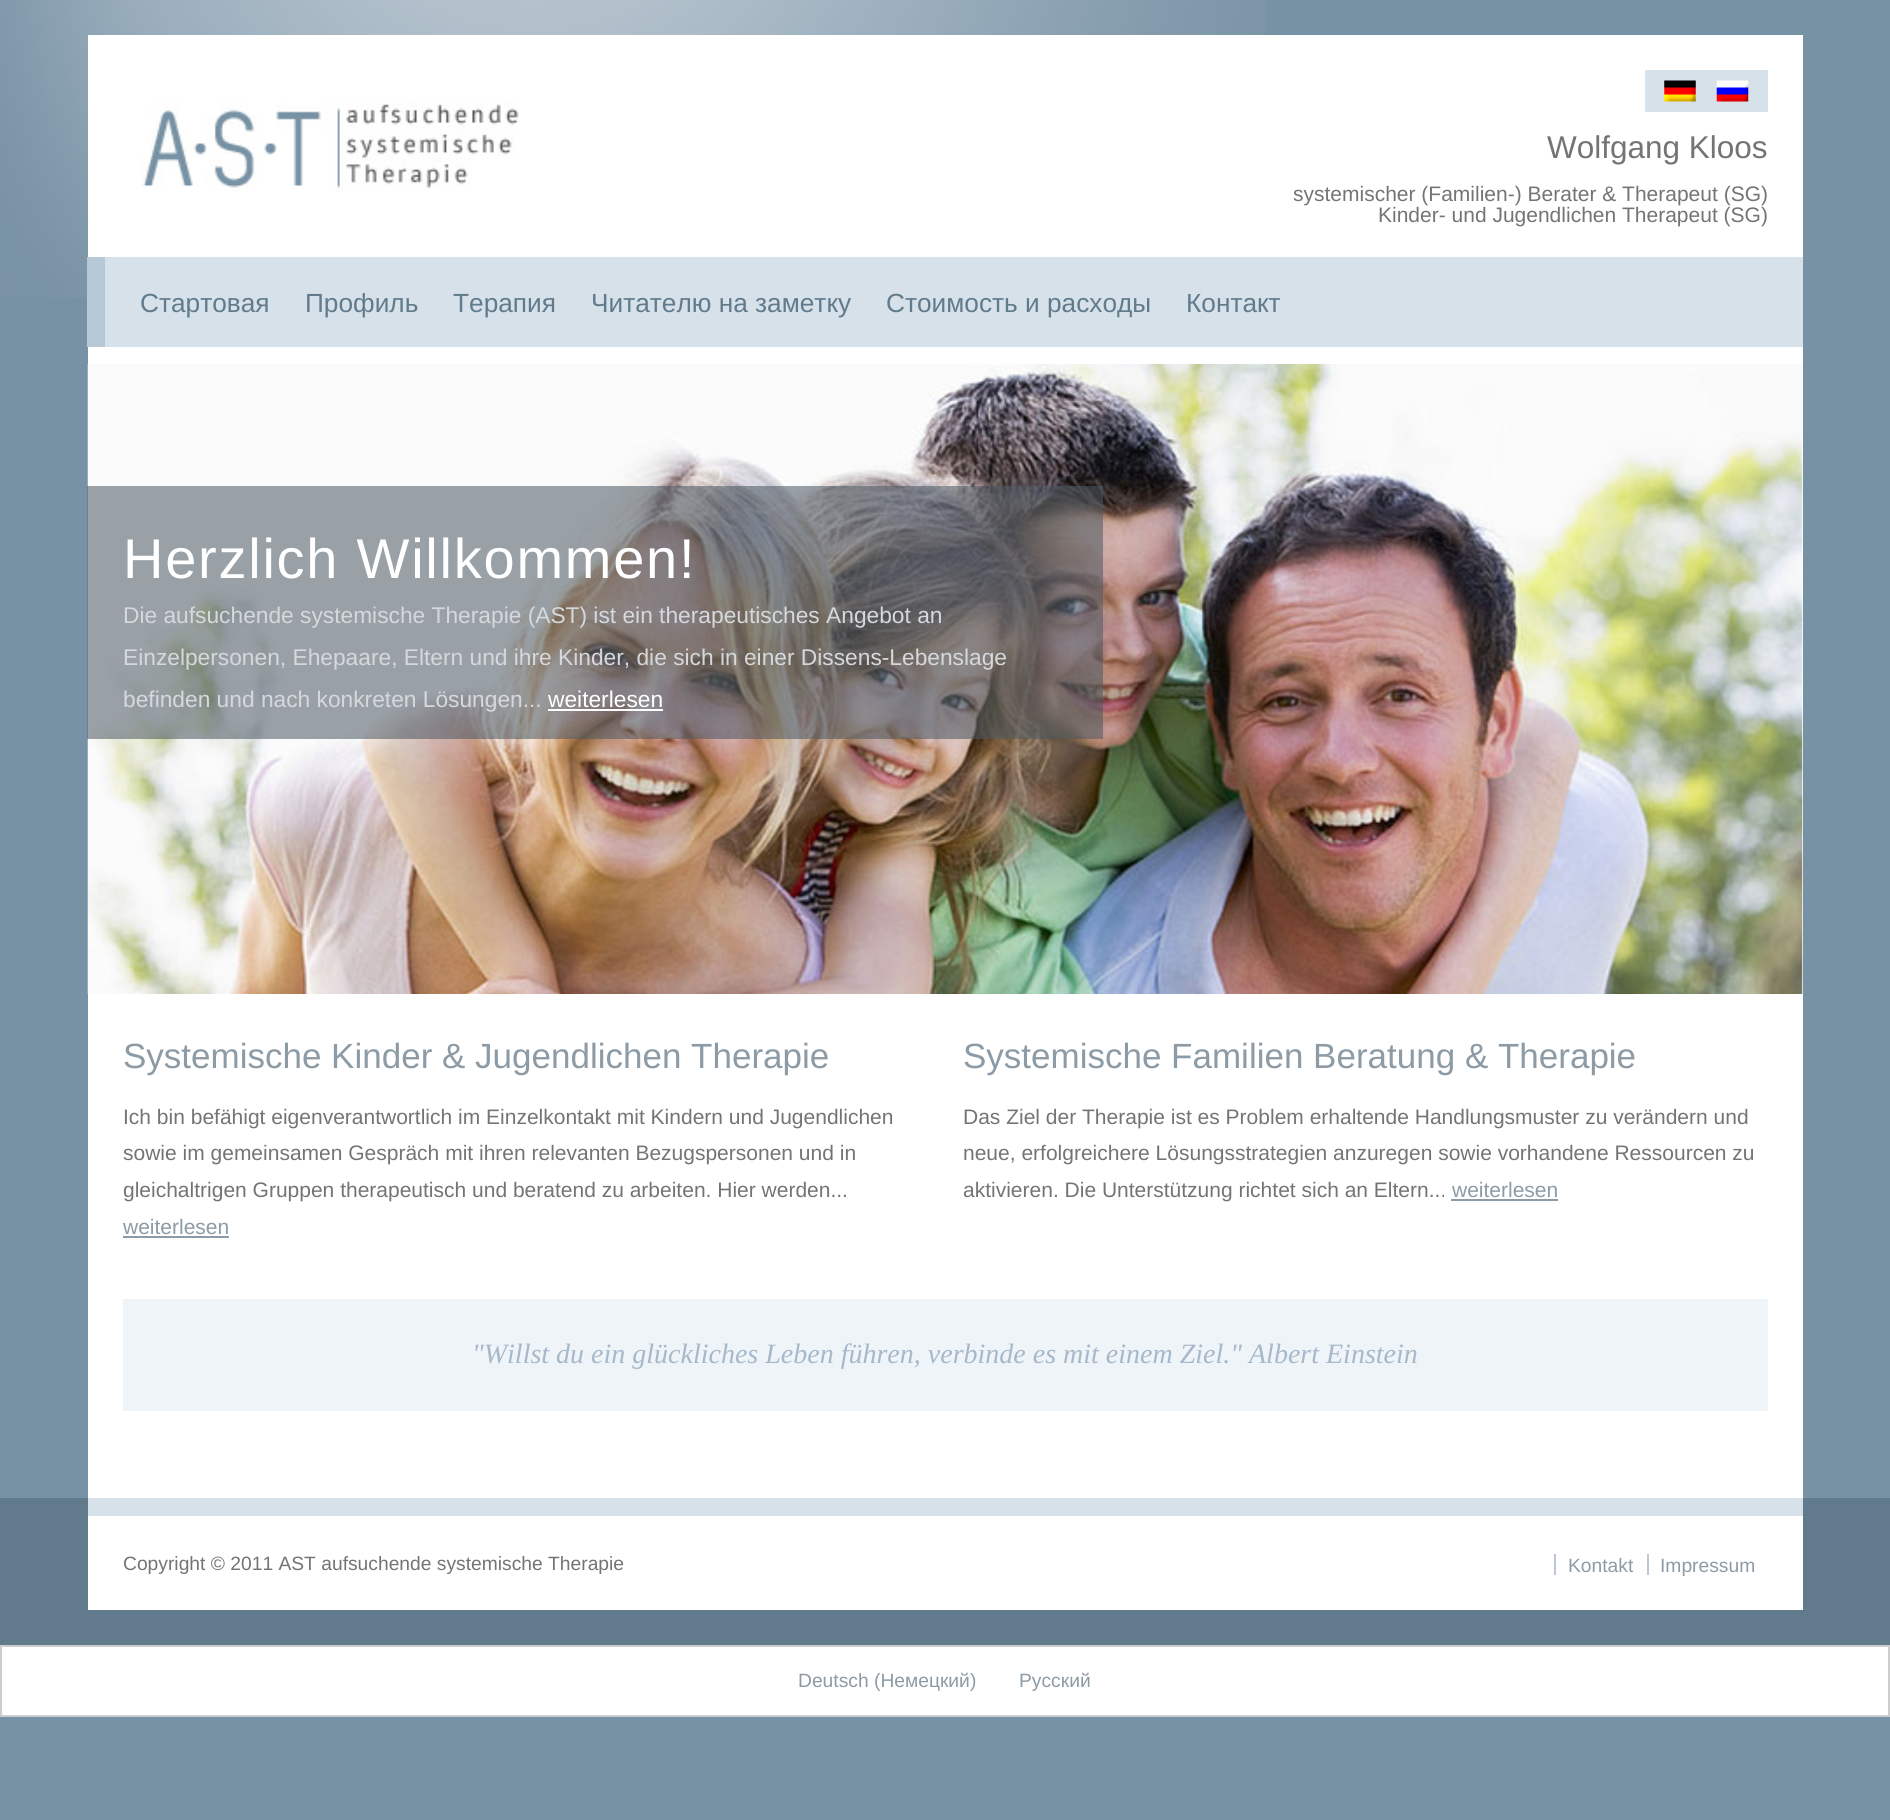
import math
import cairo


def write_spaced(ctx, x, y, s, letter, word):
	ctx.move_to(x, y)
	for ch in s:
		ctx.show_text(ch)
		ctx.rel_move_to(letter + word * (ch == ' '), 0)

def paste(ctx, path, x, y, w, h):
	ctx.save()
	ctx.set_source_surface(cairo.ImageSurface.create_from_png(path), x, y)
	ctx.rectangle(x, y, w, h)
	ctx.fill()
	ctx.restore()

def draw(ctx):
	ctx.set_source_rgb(0.471, 0.573, 0.647)
	ctx.paint()
	paste(ctx, 'media/1.png', 0, 0, 1266, 298)
	ctx.set_source_rgb(1, 1, 1)
	ctx.rectangle(88, 35, 1715, 1463)
	ctx.fill()
	ctx.set_source_rgb(0.839, 0.882, 0.914)
	ctx.rectangle(1645, 70, 123, 42)
	ctx.fill()
	paste(ctx, 'media/2.png', 1664, 80, 32, 22)
	paste(ctx, 'media/3.png', 1716, 80, 33, 22)
	paste(ctx, 'media/4.png', 140, 102, 379, 90)
	ctx.select_font_face('Liberation Sans')
	ctx.set_font_size(31.5)
	ctx.set_source_rgb(0.455, 0.455, 0.455)
	ctx.move_to(1547, 158)
	ctx.show_text('Wolfgang Kloos')
	ctx.set_font_size(21)
	ctx.move_to(1293, 201)
	ctx.show_text('systemischer (Familien-) Berater & Therapeut (SG)')
	ctx.move_to(1378, 222)
	ctx.show_text('Kinder- und Jugendlichen Therapeut (SG)')
	ctx.set_source_rgb(0.839, 0.882, 0.914)
	ctx.rectangle(105, 257, 1698, 90)
	ctx.fill()
	ctx.set_source_rgb(0.718, 0.788, 0.839)
	ctx.rectangle(87, 257, 18, 90)
	ctx.fill()
	ctx.set_font_size(26.25)
	ctx.set_source_rgb(0.38, 0.482, 0.553)
	for x, y, s in [
		(140, 312, 'Стартовая'),
		(305, 312, 'Профиль'),
		(453, 312, 'Терапия'),
		(591, 312, 'Читателю на заметку'),
		(886, 312, 'Стоимость и расходы'),
		(1186, 312, 'Контакт'),
	]:
		ctx.move_to(x, y)
		ctx.show_text(s)
	paste(ctx, 'media/5.png', 87, 364, 1716, 630)
	ctx.set_source_rgba(0.302, 0.349, 0.392, 0.56)
	ctx.rectangle(87, 486, 1016, 253)
	ctx.fill()
	ctx.set_font_size(56)
	ctx.set_source_rgb(1, 1, 1)
	write_spaced(ctx, 123, 578, 'Herzlich Willkommen!', 1.75, 0)
	ctx.set_font_size(22.75)
	ctx.set_source_rgb(0.835, 0.851, 0.871)
	for x, y, s in [
		(123, 623, 'Die aufsuchende systemische Therapie (AST) ist ein therapeutisches Angebot an'),
		(123, 665, 'Einzelpersonen, Ehepaare, Eltern und ihre Kinder, die sich in einer Dissens-Lebenslage'),
		(123, 707, 'befinden und nach konkreten Lösungen...'),
	]:
		ctx.move_to(x, y)
		ctx.show_text(s)
	ctx.set_source_rgb(1, 1, 1)
	ctx.move_to(548, 707)
	ctx.show_text('weiterlesen')
	ctx.rectangle(548, 709, 115, 2)
	ctx.fill()
	ctx.set_font_size(35)
	ctx.set_source_rgb(0.549, 0.608, 0.647)
	ctx.move_to(123, 1068)
	ctx.show_text('Systemische Kinder & Jugendlichen Therapie')
	ctx.set_font_size(21)
	ctx.set_source_rgb(0.455, 0.455, 0.455)
	for x, y, s in [
		(123, 1124, 'Ich bin befähigt eigenverantwortlich im Einzelkontakt mit Kindern und Jugendlichen'),
		(123, 1160, 'sowie im gemeinsamen Gespräch mit ihren relevanten Bezugspersonen und in'),
		(123, 1197, 'gleichaltrigen Gruppen therapeutisch und beratend zu arbeiten. Hier werden...'),
	]:
		ctx.move_to(x, y)
		ctx.show_text(s)
	ctx.set_source_rgb(0.549, 0.608, 0.647)
	ctx.move_to(123, 1234)
	ctx.show_text('weiterlesen')
	ctx.rectangle(123, 1236, 106, 2)
	ctx.fill()
	ctx.set_font_size(35)
	ctx.move_to(963, 1068)
	ctx.show_text('Systemische Familien Beratung & Therapie')
	ctx.set_font_size(21)
	ctx.set_source_rgb(0.455, 0.455, 0.455)
	for x, y, s in [
		(963, 1124, 'Das Ziel der Therapie ist es Problem erhaltende Handlungsmuster zu verändern und'),
		(963, 1160, 'neue, erfolgreichere Lösungsstrategien anzuregen sowie vorhandene Ressourcen zu'),
		(963, 1197, 'aktivieren. Die Unterstützung richtet sich an Eltern...'),
	]:
		ctx.move_to(x, y)
		ctx.show_text(s)
	ctx.set_source_rgb(0.549, 0.608, 0.647)
	ctx.move_to(1452, 1197)
	ctx.show_text('weiterlesen')
	ctx.rectangle(1451, 1199, 107, 2)
	ctx.fill()
	ctx.set_source_rgb(0.933, 0.957, 0.969)
	ctx.rectangle(123, 1299, 1645, 112)
	ctx.fill()
	ctx.select_font_face('Liberation Serif', cairo.FONT_SLANT_ITALIC)
	ctx.set_font_size(28)
	ctx.set_source_rgb(0.651, 0.722, 0.788)
	ctx.move_to(472, 1363)
	ctx.show_text('"Willst du ein glückliches Leben führen, verbinde es mit einem Ziel." Albert Einstein')
	ctx.set_source_rgb(0.38, 0.482, 0.553)
	ctx.rectangle(0, 1498, 1890, 147)
	ctx.fill()
	ctx.set_source_rgb(0.839, 0.882, 0.914)
	ctx.rectangle(88, 1498, 1715, 18)
	ctx.fill()
	ctx.set_source_rgb(1, 1, 1)
	ctx.rectangle(88, 1516, 1715, 94)
	ctx.fill()
	ctx.select_font_face('Liberation Sans')
	ctx.set_font_size(19.25)
	ctx.set_source_rgb(0.455, 0.455, 0.455)
	ctx.move_to(123, 1570)
	ctx.show_text('Copyright © 2011 AST aufsuchende systemische Therapie')
	ctx.set_source_rgb(0.741, 0.78, 0.839)
	ctx.rectangle(1554, 1554, 2, 21)
	ctx.fill()
	ctx.set_source_rgb(0.549, 0.608, 0.647)
	ctx.move_to(1568, 1572)
	ctx.show_text('Kontakt')
	ctx.set_source_rgb(0.741, 0.78, 0.839)
	ctx.rectangle(1647, 1554, 2, 21)
	ctx.fill()
	ctx.set_source_rgb(0.549, 0.608, 0.647)
	ctx.move_to(1660, 1572)
	ctx.show_text('Impressum')
	ctx.set_source_rgb(1, 1, 1)
	ctx.rectangle(1, 1646, 1888, 70)
	ctx.fill_preserve()
	ctx.set_source_rgb(0.804, 0.804, 0.804)
	ctx.stroke()
	ctx.set_source_rgb(0.549, 0.608, 0.647)
	ctx.move_to(798, 1687)
	ctx.show_text('Deutsch (Немецкий)')
	ctx.move_to(1019, 1687)
	ctx.show_text('Русский')


surface = cairo.ImageSurface(cairo.FORMAT_RGB24, 1890, 1820)
ctx = cairo.Context(surface)
options = cairo.FontOptions()
options.set_hint_metrics(cairo.HINT_METRICS_OFF)
options.set_hint_style(cairo.HINT_STYLE_NONE)
ctx.set_font_options(options)
ctx.set_miter_limit(4)
draw(ctx)
surface.write_to_png('image.png')
